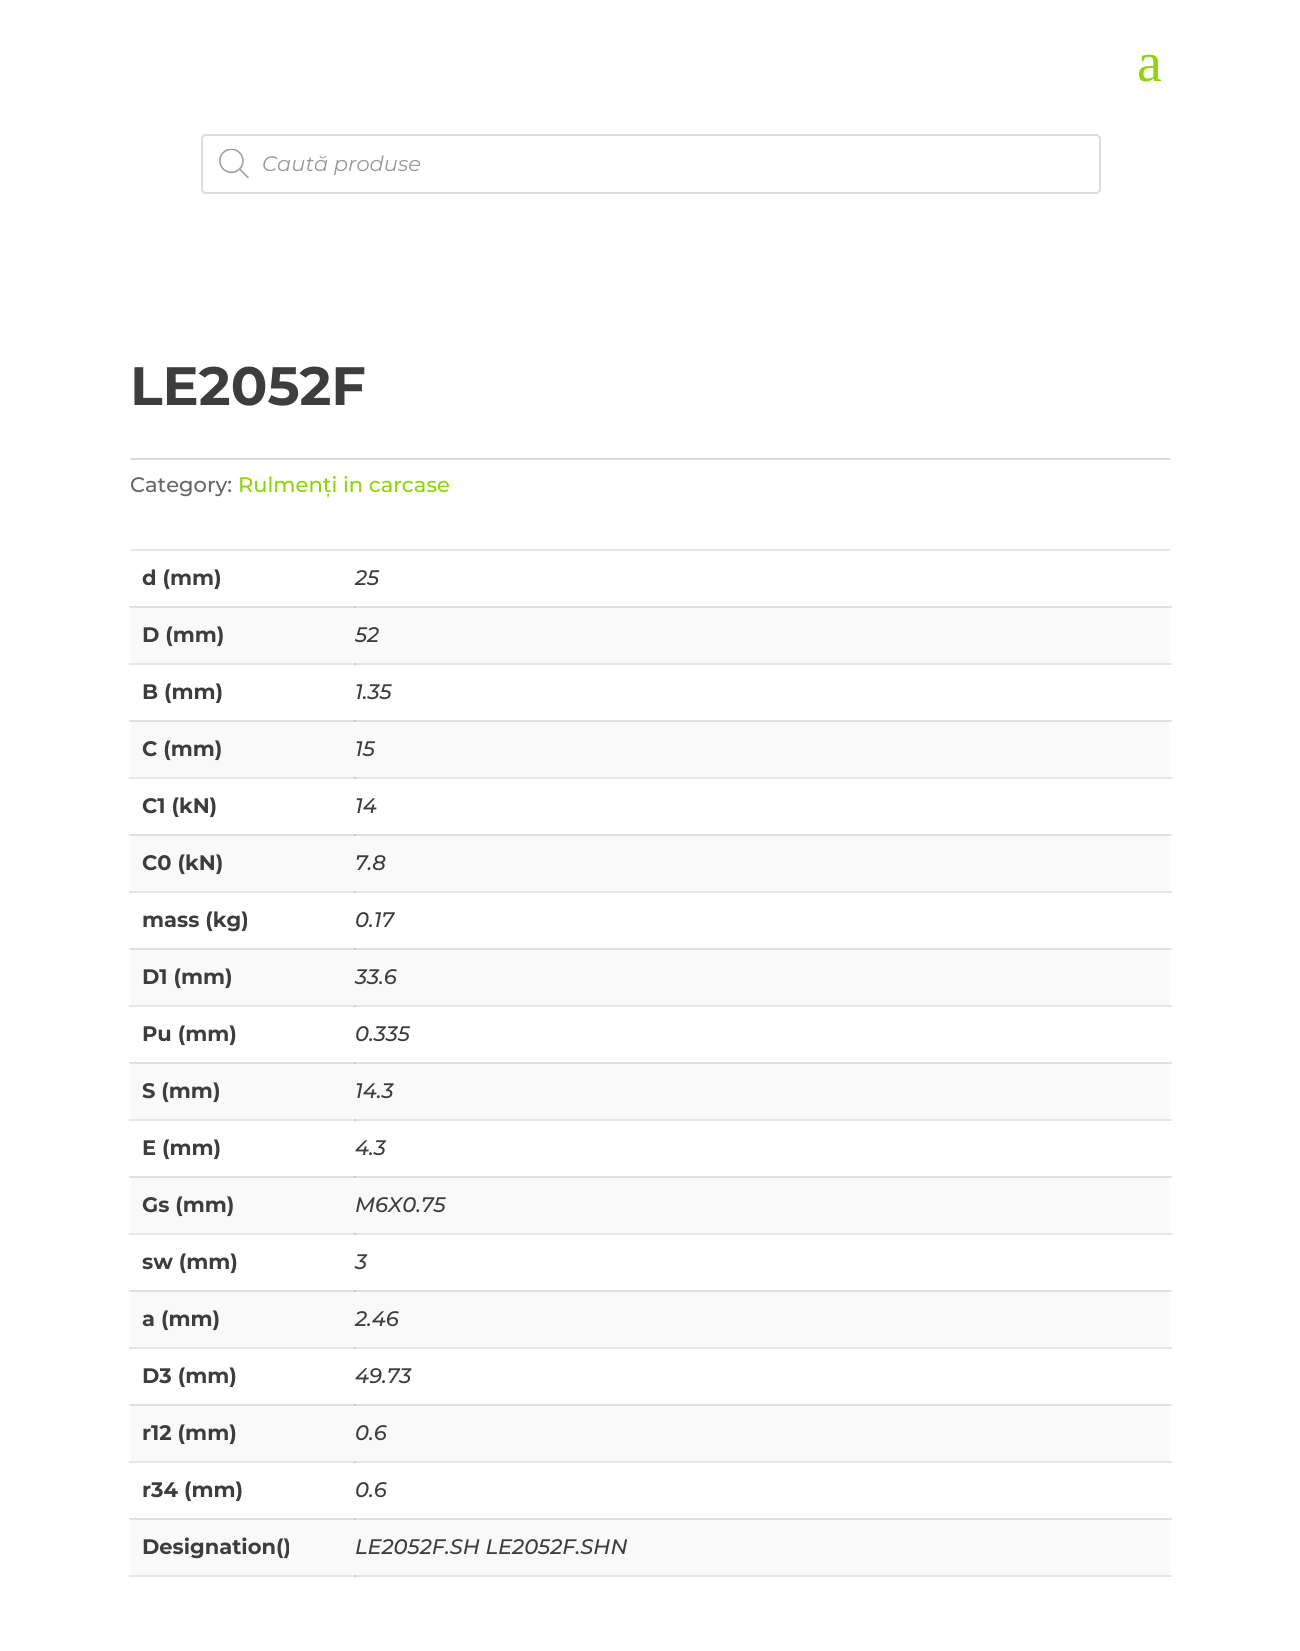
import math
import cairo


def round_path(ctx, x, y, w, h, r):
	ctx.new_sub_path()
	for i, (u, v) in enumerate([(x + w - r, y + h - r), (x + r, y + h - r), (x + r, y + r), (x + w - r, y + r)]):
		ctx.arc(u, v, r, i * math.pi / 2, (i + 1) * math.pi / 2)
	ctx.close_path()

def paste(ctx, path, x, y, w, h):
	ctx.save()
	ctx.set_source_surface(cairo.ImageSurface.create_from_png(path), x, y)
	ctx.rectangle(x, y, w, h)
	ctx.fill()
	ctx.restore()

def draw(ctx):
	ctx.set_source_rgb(1, 1, 1)
	ctx.paint()
	ctx.set_source_rgb(0.902, 0.902, 0.902)
	ctx.rectangle(129, 606, 2, 2)
	ctx.rectangle(1170, 606, 2, 2)
	ctx.rectangle(129, 663, 1043, 2)
	ctx.rectangle(129, 720, 2, 2)
	ctx.rectangle(1170, 720, 2, 2)
	ctx.rectangle(129, 777, 1043, 2)
	ctx.rectangle(129, 834, 2, 2)
	ctx.rectangle(1170, 834, 2, 2)
	ctx.rectangle(129, 891, 1043, 2)
	ctx.rectangle(129, 948, 2, 2)
	ctx.rectangle(1170, 948, 2, 2)
	ctx.rectangle(129, 1005, 1043, 2)
	ctx.rectangle(129, 1062, 2, 2)
	ctx.rectangle(1170, 1062, 2, 2)
	ctx.rectangle(129, 1119, 1043, 2)
	ctx.rectangle(129, 1176, 2, 2)
	ctx.rectangle(1170, 1176, 2, 2)
	ctx.rectangle(129, 1233, 1043, 2)
	ctx.rectangle(129, 1290, 2, 2)
	ctx.rectangle(1170, 1290, 2, 2)
	ctx.rectangle(129, 1347, 1043, 2)
	ctx.rectangle(129, 1404, 2, 2)
	ctx.rectangle(1170, 1404, 2, 2)
	ctx.rectangle(129, 1461, 1043, 2)
	ctx.rectangle(129, 1518, 2, 2)
	ctx.rectangle(1170, 1518, 2, 2)
	ctx.rectangle(129, 1575, 1043, 2)
	ctx.fill()
	ctx.select_font_face('Liberation Serif')
	ctx.set_font_size(56)
	ctx.set_source_rgb(0.549, 0.835, 0.035)
	ctx.move_to(1137, 81)
	ctx.show_text('a')
	round_path(ctx, 202, 135, 898, 58, 4)
	ctx.set_source_rgb(0.867, 0.867, 0.867)
	ctx.stroke()
	paste(ctx, 'media/1.png', 219, 149, 30, 30)
	ctx.select_font_face('Montserrat', cairo.FONT_SLANT_ITALIC)
	ctx.set_font_size(21)
	ctx.set_source_rgb(0.6, 0.6, 0.6)
	ctx.move_to(262, 171)
	ctx.show_text('Caută produse')
	ctx.select_font_face('Montserrat', cairo.FONT_SLANT_NORMAL, cairo.FONT_WEIGHT_BOLD)
	ctx.set_font_size(54)
	ctx.set_source_rgb(0.235, 0.239, 0.235)
	ctx.move_to(130, 405)
	ctx.show_text('LE2052F')
	ctx.set_source_rgb(0.855, 0.855, 0.855)
	ctx.rectangle(131, 458, 1039, 2)
	ctx.fill()
	ctx.select_font_face('Montserrat Medium')
	ctx.set_font_size(21)
	ctx.set_source_rgb(0.4, 0.4, 0.4)
	ctx.move_to(130, 492)
	ctx.show_text('Category:')
	ctx.set_source_rgb(0.549, 0.835, 0.035)
	ctx.move_to(238, 492)
	ctx.show_text('Rulmenți in carcase')
	ctx.set_source_rgb(0.902, 0.902, 0.902)
	ctx.rectangle(131, 549, 1039, 2)
	ctx.fill()
	ctx.select_font_face('Montserrat', cairo.FONT_SLANT_NORMAL, cairo.FONT_WEIGHT_BOLD)
	ctx.set_source_rgb(0.235, 0.239, 0.235)
	ctx.move_to(142, 585)
	ctx.show_text('d (mm)')
	ctx.select_font_face('Montserrat Medium', cairo.FONT_SLANT_ITALIC)
	ctx.move_to(355, 585)
	ctx.show_text('25')
	ctx.set_source_rgb(0.976, 0.976, 0.976)
	ctx.rectangle(131, 608, 1039, 55)
	ctx.fill()
	ctx.set_source_rgb(0.878, 0.878, 0.878)
	ctx.rectangle(131, 606, 1039, 2)
	ctx.fill()
	ctx.set_source_rgb(0.792, 0.792, 0.792)
	ctx.rectangle(354, 606, 2, 2)
	ctx.fill()
	ctx.select_font_face('Montserrat', cairo.FONT_SLANT_NORMAL, cairo.FONT_WEIGHT_BOLD)
	ctx.set_source_rgb(0.235, 0.239, 0.235)
	ctx.move_to(142, 642)
	ctx.show_text('D (mm)')
	ctx.set_source_rgb(0.812, 0.812, 0.812)
	ctx.rectangle(354, 663, 2, 2)
	ctx.fill()
	ctx.select_font_face('Montserrat Medium', cairo.FONT_SLANT_ITALIC)
	ctx.set_source_rgb(0.235, 0.239, 0.235)
	ctx.move_to(355, 642)
	ctx.show_text('52')
	ctx.select_font_face('Montserrat', cairo.FONT_SLANT_NORMAL, cairo.FONT_WEIGHT_BOLD)
	ctx.move_to(142, 699)
	ctx.show_text('B (mm)')
	ctx.select_font_face('Montserrat Medium', cairo.FONT_SLANT_ITALIC)
	ctx.move_to(355, 699)
	ctx.show_text('1.35')
	ctx.set_source_rgb(0.976, 0.976, 0.976)
	ctx.rectangle(131, 722, 1039, 55)
	ctx.fill()
	ctx.set_source_rgb(0.878, 0.878, 0.878)
	ctx.rectangle(131, 720, 1039, 2)
	ctx.fill()
	ctx.set_source_rgb(0.792, 0.792, 0.792)
	ctx.rectangle(354, 720, 2, 2)
	ctx.fill()
	ctx.select_font_face('Montserrat', cairo.FONT_SLANT_NORMAL, cairo.FONT_WEIGHT_BOLD)
	ctx.set_source_rgb(0.235, 0.239, 0.235)
	ctx.move_to(142, 756)
	ctx.show_text('C (mm)')
	ctx.set_source_rgb(0.812, 0.812, 0.812)
	ctx.rectangle(354, 777, 2, 2)
	ctx.fill()
	ctx.select_font_face('Montserrat Medium', cairo.FONT_SLANT_ITALIC)
	ctx.set_source_rgb(0.235, 0.239, 0.235)
	ctx.move_to(355, 756)
	ctx.show_text('15')
	ctx.select_font_face('Montserrat', cairo.FONT_SLANT_NORMAL, cairo.FONT_WEIGHT_BOLD)
	ctx.move_to(142, 813)
	ctx.show_text('C1 (kN)')
	ctx.select_font_face('Montserrat Medium', cairo.FONT_SLANT_ITALIC)
	ctx.move_to(355, 813)
	ctx.show_text('14')
	ctx.set_source_rgb(0.976, 0.976, 0.976)
	ctx.rectangle(131, 836, 1039, 55)
	ctx.fill()
	ctx.set_source_rgb(0.878, 0.878, 0.878)
	ctx.rectangle(131, 834, 1039, 2)
	ctx.fill()
	ctx.set_source_rgb(0.792, 0.792, 0.792)
	ctx.rectangle(354, 834, 2, 2)
	ctx.fill()
	ctx.select_font_face('Montserrat', cairo.FONT_SLANT_NORMAL, cairo.FONT_WEIGHT_BOLD)
	ctx.set_source_rgb(0.235, 0.239, 0.235)
	ctx.move_to(142, 870)
	ctx.show_text('C0 (kN)')
	ctx.set_source_rgb(0.812, 0.812, 0.812)
	ctx.rectangle(354, 891, 2, 2)
	ctx.fill()
	ctx.select_font_face('Montserrat Medium', cairo.FONT_SLANT_ITALIC)
	ctx.set_source_rgb(0.235, 0.239, 0.235)
	ctx.move_to(355, 870)
	ctx.show_text('7.8')
	ctx.select_font_face('Montserrat', cairo.FONT_SLANT_NORMAL, cairo.FONT_WEIGHT_BOLD)
	ctx.move_to(142, 927)
	ctx.show_text('mass (kg)')
	ctx.select_font_face('Montserrat Medium', cairo.FONT_SLANT_ITALIC)
	ctx.move_to(355, 927)
	ctx.show_text('0.17')
	ctx.set_source_rgb(0.976, 0.976, 0.976)
	ctx.rectangle(131, 950, 1039, 55)
	ctx.fill()
	ctx.set_source_rgb(0.878, 0.878, 0.878)
	ctx.rectangle(131, 948, 1039, 2)
	ctx.fill()
	ctx.set_source_rgb(0.792, 0.792, 0.792)
	ctx.rectangle(354, 948, 2, 2)
	ctx.fill()
	ctx.select_font_face('Montserrat', cairo.FONT_SLANT_NORMAL, cairo.FONT_WEIGHT_BOLD)
	ctx.set_source_rgb(0.235, 0.239, 0.235)
	ctx.move_to(142, 984)
	ctx.show_text('D1 (mm)')
	ctx.set_source_rgb(0.812, 0.812, 0.812)
	ctx.rectangle(354, 1005, 2, 2)
	ctx.fill()
	ctx.select_font_face('Montserrat Medium', cairo.FONT_SLANT_ITALIC)
	ctx.set_source_rgb(0.235, 0.239, 0.235)
	ctx.move_to(355, 984)
	ctx.show_text('33.6')
	ctx.select_font_face('Montserrat', cairo.FONT_SLANT_NORMAL, cairo.FONT_WEIGHT_BOLD)
	ctx.move_to(142, 1041)
	ctx.show_text('Pu (mm)')
	ctx.select_font_face('Montserrat Medium', cairo.FONT_SLANT_ITALIC)
	ctx.move_to(355, 1041)
	ctx.show_text('0.335')
	ctx.set_source_rgb(0.976, 0.976, 0.976)
	ctx.rectangle(131, 1064, 1039, 55)
	ctx.fill()
	ctx.set_source_rgb(0.878, 0.878, 0.878)
	ctx.rectangle(131, 1062, 1039, 2)
	ctx.fill()
	ctx.set_source_rgb(0.792, 0.792, 0.792)
	ctx.rectangle(354, 1062, 2, 2)
	ctx.fill()
	ctx.select_font_face('Montserrat', cairo.FONT_SLANT_NORMAL, cairo.FONT_WEIGHT_BOLD)
	ctx.set_source_rgb(0.235, 0.239, 0.235)
	ctx.move_to(142, 1098)
	ctx.show_text('S (mm)')
	ctx.set_source_rgb(0.812, 0.812, 0.812)
	ctx.rectangle(354, 1119, 2, 2)
	ctx.fill()
	ctx.select_font_face('Montserrat Medium', cairo.FONT_SLANT_ITALIC)
	ctx.set_source_rgb(0.235, 0.239, 0.235)
	ctx.move_to(355, 1098)
	ctx.show_text('14.3')
	ctx.select_font_face('Montserrat', cairo.FONT_SLANT_NORMAL, cairo.FONT_WEIGHT_BOLD)
	ctx.move_to(142, 1155)
	ctx.show_text('E (mm)')
	ctx.select_font_face('Montserrat Medium', cairo.FONT_SLANT_ITALIC)
	ctx.move_to(355, 1155)
	ctx.show_text('4.3')
	ctx.set_source_rgb(0.976, 0.976, 0.976)
	ctx.rectangle(131, 1178, 1039, 55)
	ctx.fill()
	ctx.set_source_rgb(0.878, 0.878, 0.878)
	ctx.rectangle(131, 1176, 1039, 2)
	ctx.fill()
	ctx.set_source_rgb(0.792, 0.792, 0.792)
	ctx.rectangle(354, 1176, 2, 2)
	ctx.fill()
	ctx.select_font_face('Montserrat', cairo.FONT_SLANT_NORMAL, cairo.FONT_WEIGHT_BOLD)
	ctx.set_source_rgb(0.235, 0.239, 0.235)
	ctx.move_to(142, 1212)
	ctx.show_text('Gs (mm)')
	ctx.set_source_rgb(0.812, 0.812, 0.812)
	ctx.rectangle(354, 1233, 2, 2)
	ctx.fill()
	ctx.select_font_face('Montserrat Medium', cairo.FONT_SLANT_ITALIC)
	ctx.set_source_rgb(0.235, 0.239, 0.235)
	ctx.move_to(355, 1212)
	ctx.show_text('M6X0.75')
	ctx.select_font_face('Montserrat', cairo.FONT_SLANT_NORMAL, cairo.FONT_WEIGHT_BOLD)
	ctx.move_to(142, 1269)
	ctx.show_text('sw (mm)')
	ctx.select_font_face('Montserrat Medium', cairo.FONT_SLANT_ITALIC)
	ctx.move_to(355, 1269)
	ctx.show_text('3')
	ctx.set_source_rgb(0.976, 0.976, 0.976)
	ctx.rectangle(131, 1292, 1039, 55)
	ctx.fill()
	ctx.set_source_rgb(0.878, 0.878, 0.878)
	ctx.rectangle(131, 1290, 1039, 2)
	ctx.fill()
	ctx.set_source_rgb(0.792, 0.792, 0.792)
	ctx.rectangle(354, 1290, 2, 2)
	ctx.fill()
	ctx.select_font_face('Montserrat', cairo.FONT_SLANT_NORMAL, cairo.FONT_WEIGHT_BOLD)
	ctx.set_source_rgb(0.235, 0.239, 0.235)
	ctx.move_to(142, 1326)
	ctx.show_text('a (mm)')
	ctx.set_source_rgb(0.812, 0.812, 0.812)
	ctx.rectangle(354, 1347, 2, 2)
	ctx.fill()
	ctx.select_font_face('Montserrat Medium', cairo.FONT_SLANT_ITALIC)
	ctx.set_source_rgb(0.235, 0.239, 0.235)
	ctx.move_to(355, 1326)
	ctx.show_text('2.46')
	ctx.select_font_face('Montserrat', cairo.FONT_SLANT_NORMAL, cairo.FONT_WEIGHT_BOLD)
	ctx.move_to(142, 1383)
	ctx.show_text('D3 (mm)')
	ctx.select_font_face('Montserrat Medium', cairo.FONT_SLANT_ITALIC)
	ctx.move_to(355, 1383)
	ctx.show_text('49.73')
	ctx.set_source_rgb(0.976, 0.976, 0.976)
	ctx.rectangle(131, 1406, 1039, 55)
	ctx.fill()
	ctx.set_source_rgb(0.878, 0.878, 0.878)
	ctx.rectangle(131, 1404, 1039, 2)
	ctx.fill()
	ctx.set_source_rgb(0.792, 0.792, 0.792)
	ctx.rectangle(354, 1404, 2, 2)
	ctx.fill()
	ctx.select_font_face('Montserrat', cairo.FONT_SLANT_NORMAL, cairo.FONT_WEIGHT_BOLD)
	ctx.set_source_rgb(0.235, 0.239, 0.235)
	ctx.move_to(142, 1440)
	ctx.show_text('r12 (mm)')
	ctx.set_source_rgb(0.812, 0.812, 0.812)
	ctx.rectangle(354, 1461, 2, 2)
	ctx.fill()
	ctx.select_font_face('Montserrat Medium', cairo.FONT_SLANT_ITALIC)
	ctx.set_source_rgb(0.235, 0.239, 0.235)
	ctx.move_to(355, 1440)
	ctx.show_text('0.6')
	ctx.select_font_face('Montserrat', cairo.FONT_SLANT_NORMAL, cairo.FONT_WEIGHT_BOLD)
	ctx.move_to(142, 1497)
	ctx.show_text('r34 (mm)')
	ctx.select_font_face('Montserrat Medium', cairo.FONT_SLANT_ITALIC)
	ctx.move_to(355, 1497)
	ctx.show_text('0.6')
	ctx.set_source_rgb(0.976, 0.976, 0.976)
	ctx.rectangle(131, 1520, 1039, 55)
	ctx.fill()
	ctx.set_source_rgb(0.878, 0.878, 0.878)
	ctx.rectangle(131, 1518, 1039, 2)
	ctx.fill()
	ctx.set_source_rgb(0.792, 0.792, 0.792)
	ctx.rectangle(354, 1518, 2, 2)
	ctx.fill()
	ctx.select_font_face('Montserrat', cairo.FONT_SLANT_NORMAL, cairo.FONT_WEIGHT_BOLD)
	ctx.set_source_rgb(0.235, 0.239, 0.235)
	ctx.move_to(142, 1554)
	ctx.show_text('Designation()')
	ctx.set_source_rgb(0.812, 0.812, 0.812)
	ctx.rectangle(354, 1575, 2, 2)
	ctx.fill()
	ctx.select_font_face('Montserrat Medium', cairo.FONT_SLANT_ITALIC)
	ctx.set_source_rgb(0.235, 0.239, 0.235)
	ctx.move_to(355, 1554)
	ctx.show_text('LE2052F.SH LE2052F.SHN')


surface = cairo.ImageSurface(cairo.FORMAT_RGB24, 1300, 1651)
ctx = cairo.Context(surface)
options = cairo.FontOptions()
options.set_hint_metrics(cairo.HINT_METRICS_OFF)
options.set_hint_style(cairo.HINT_STYLE_NONE)
ctx.set_font_options(options)
ctx.set_miter_limit(4)
draw(ctx)
surface.write_to_png('image.png')
